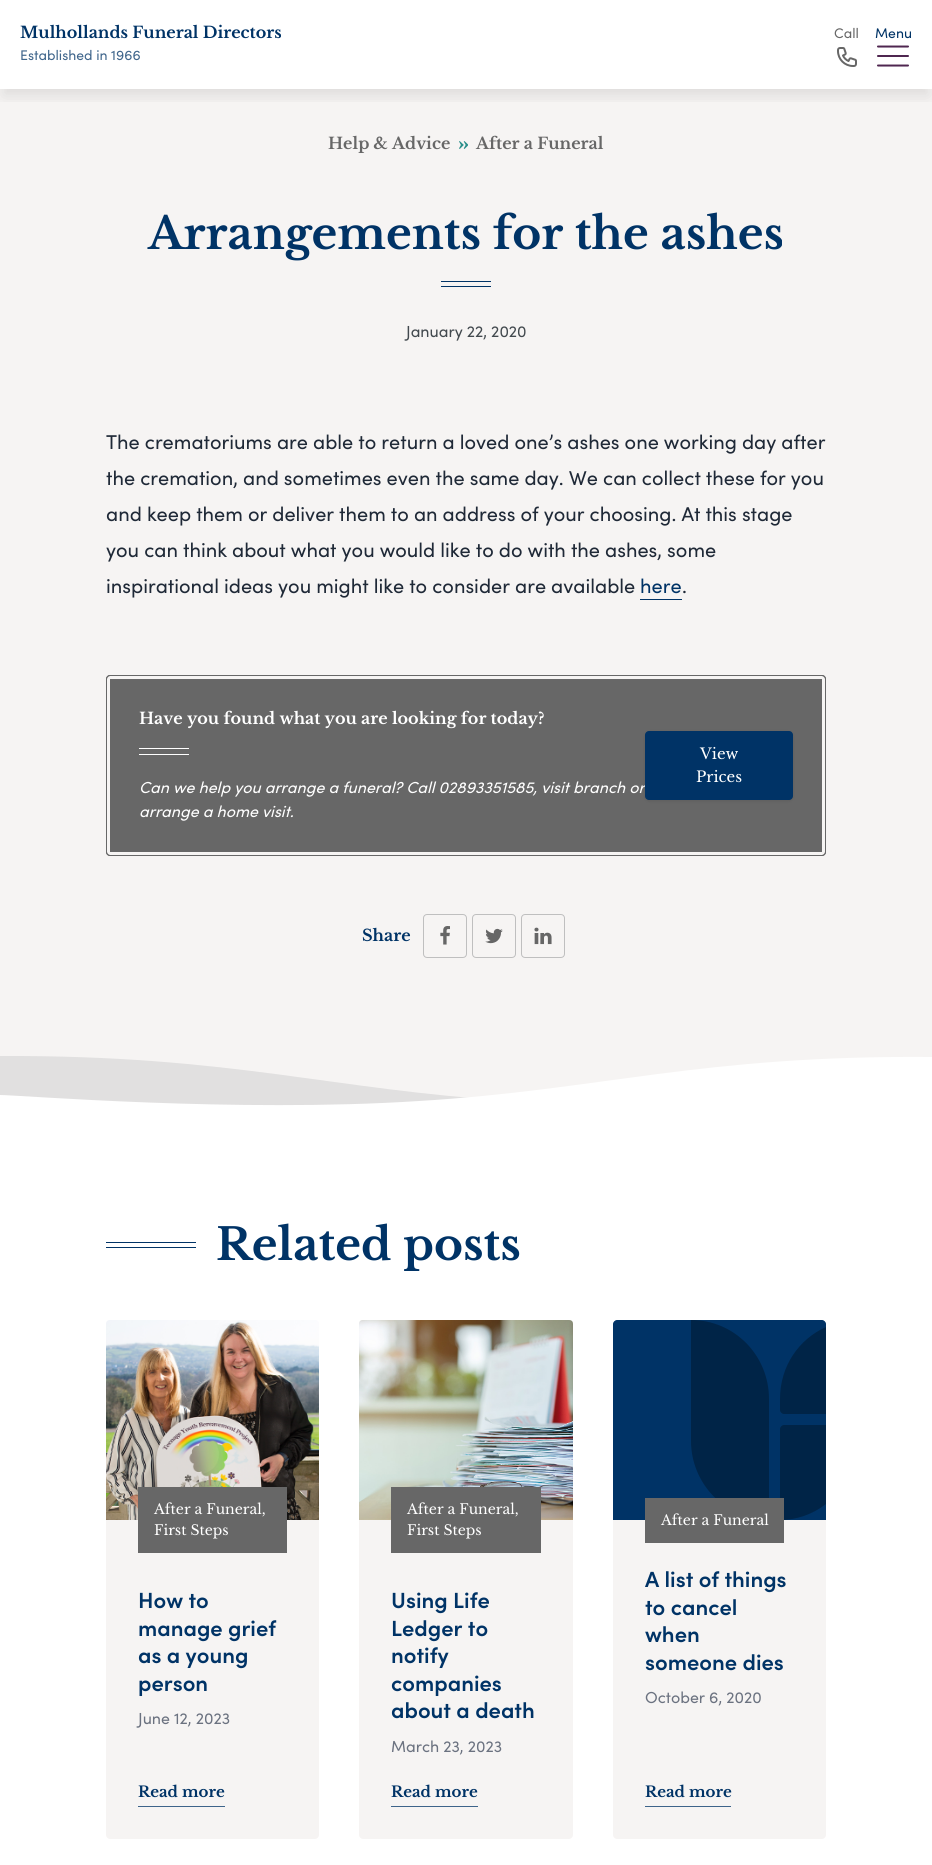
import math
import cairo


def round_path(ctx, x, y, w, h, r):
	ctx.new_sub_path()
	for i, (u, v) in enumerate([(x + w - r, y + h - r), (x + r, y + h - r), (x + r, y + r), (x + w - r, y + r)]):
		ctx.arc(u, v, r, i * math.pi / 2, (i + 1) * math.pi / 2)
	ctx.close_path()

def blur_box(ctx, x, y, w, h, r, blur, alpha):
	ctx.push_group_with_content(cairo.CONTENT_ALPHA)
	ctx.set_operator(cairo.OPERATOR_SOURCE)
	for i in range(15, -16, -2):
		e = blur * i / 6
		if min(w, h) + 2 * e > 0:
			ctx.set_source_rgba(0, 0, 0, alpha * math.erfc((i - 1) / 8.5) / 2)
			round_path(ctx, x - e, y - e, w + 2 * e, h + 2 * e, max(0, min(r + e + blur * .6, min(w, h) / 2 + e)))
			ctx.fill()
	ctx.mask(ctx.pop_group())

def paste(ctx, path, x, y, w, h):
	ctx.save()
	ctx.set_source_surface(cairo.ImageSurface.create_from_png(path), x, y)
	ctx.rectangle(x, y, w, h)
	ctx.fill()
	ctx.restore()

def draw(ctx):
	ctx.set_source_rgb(1, 1, 1)
	ctx.paint()
	ctx.set_source_rgb(0.961, 0.957, 0.953)
	ctx.rectangle(0, 89, 932, 1009)
	ctx.fill()
	ctx.save()
	ctx.rectangle(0, 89, 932, 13)
	ctx.clip()
	ctx.set_source_rgb(0, 0, 0)
	blur_box(ctx, 3, 13, 926, 83, 0, 7.5, 0.1)
	ctx.restore()
	ctx.select_font_face('Libre Baskerville', cairo.FONT_SLANT_NORMAL, cairo.FONT_WEIGHT_BOLD)
	ctx.set_font_size(16)
	ctx.set_source_rgb(0, 0.2, 0.4)
	ctx.move_to(20, 38)
	ctx.show_text('Mulhollands Funeral Directors')
	ctx.select_font_face('Sofia')
	ctx.set_font_size(14)
	ctx.set_source_rgb(0.251, 0.4, 0.549)
	ctx.move_to(20, 60)
	ctx.show_text('Established in 1966')
	ctx.set_source_rgb(0.404, 0.404, 0.404)
	ctx.move_to(834, 38)
	ctx.show_text('Call')
	paste(ctx, 'media/1.png', 837, 47, 20, 20)
	ctx.set_source_rgb(0, 0.2, 0.4)
	ctx.move_to(875, 38)
	ctx.show_text('Menu')
	ctx.new_path()
	ctx.move_to(878, 46.5)
	ctx.line_to(908, 46.5)
	ctx.move_to(878, 56)
	ctx.line_to(908, 56)
	ctx.move_to(878, 65.5)
	ctx.line_to(908, 65.5)
	ctx.set_source_rgb(0.31, 0.149, 0.314)
	ctx.set_line_cap(cairo.LINE_CAP_ROUND)
	ctx.set_line_join(cairo.LINE_JOIN_ROUND)
	ctx.stroke()
	ctx.select_font_face('Libre Baskerville', cairo.FONT_SLANT_NORMAL, cairo.FONT_WEIGHT_BOLD)
	ctx.set_font_size(16)
	ctx.set_source_rgb(0.404, 0.404, 0.404)
	ctx.move_to(328, 149)
	ctx.show_text('Help & Advice')
	paste(ctx, 'media/2.png', 459, 141, 9, 8)
	ctx.move_to(476, 149)
	ctx.show_text('After a Funeral')
	ctx.set_font_size(44)
	ctx.set_source_rgb(0, 0.2, 0.4)
	ctx.move_to(148, 249)
	ctx.show_text('Arrangements for the ashes')
	ctx.rectangle(441, 281, 50, 1)
	ctx.fill()
	ctx.rectangle(441, 286, 50, 1)
	ctx.fill()
	ctx.select_font_face('Sofia')
	ctx.set_font_size(16)
	ctx.set_source_rgb(0.259, 0.286, 0.306)
	ctx.move_to(406, 337)
	ctx.show_text('January 22, 2020')
	ctx.set_font_size(20)
	ctx.set_source_rgb(0.122, 0.161, 0.216)
	for x, y, s in [
		(106, 449, 'The crematoriums are able to return a loved one’s ashes one working day after'),
		(106, 485, 'the cremation, and sometimes even the same day. We can collect these for you'),
		(106, 521, 'and keep them or deliver them to an address of your choosing. At this stage'),
		(106, 557, 'you can think about what you would like to do with the ashes, some'),
		(106, 593, 'inspirational ideas you might like to consider are available'),
	]:
		ctx.move_to(x, y)
		ctx.show_text(s)
	ctx.set_source_rgb(0, 0.2, 0.4)
	ctx.move_to(640, 593)
	ctx.show_text('here')
	ctx.rectangle(640, 599, 42, 1)
	ctx.fill()
	ctx.set_source_rgb(0.122, 0.161, 0.216)
	ctx.move_to(682, 593)
	ctx.show_text('.')
	ctx.set_source_rgb(0.404, 0.404, 0.404)
	round_path(ctx, 106, 675, 720, 181, 4)
	ctx.fill()
	round_path(ctx, 108.5, 677.5, 715, 176, 1.5)
	ctx.set_source_rgb(0.961, 0.957, 0.953)
	ctx.set_line_width(3)
	ctx.set_line_cap(cairo.LINE_CAP_BUTT)
	ctx.set_line_join(cairo.LINE_JOIN_MITER)
	ctx.stroke()
	round_path(ctx, 106.5, 675.5, 719, 180, 3.5)
	ctx.set_source_rgb(0.404, 0.404, 0.404)
	ctx.set_line_width(1)
	ctx.stroke()
	ctx.select_font_face('Libre Baskerville', cairo.FONT_SLANT_NORMAL, cairo.FONT_WEIGHT_BOLD)
	ctx.set_font_size(16)
	ctx.set_source_rgb(1, 1, 1)
	ctx.move_to(139, 724)
	ctx.show_text('Have you found what you are looking for today?')
	ctx.rectangle(139, 748, 50, 1)
	ctx.fill()
	ctx.rectangle(139, 754, 50, 1)
	ctx.fill()
	ctx.select_font_face('Sofia', cairo.FONT_SLANT_ITALIC)
	ctx.move_to(139, 793)
	ctx.show_text('Can we help you arrange a funeral? Call 02893351585, visit branch or')
	ctx.move_to(139, 817)
	ctx.show_text('arrange a home visit.')
	ctx.set_source_rgb(0, 0, 0)
	blur_box(ctx, 645, 732, 148, 69, 4, 1.5, 0.1)
	ctx.set_source_rgb(0, 0.2, 0.4)
	round_path(ctx, 645, 731, 148, 69, 4)
	ctx.fill()
	ctx.select_font_face('Libre Baskerville')
	ctx.set_font_size(15)
	ctx.set_source_rgb(1, 1, 1)
	ctx.move_to(700, 759)
	ctx.show_text('View')
	ctx.move_to(696, 782)
	ctx.show_text('Prices')
	ctx.select_font_face('Libre Baskerville', cairo.FONT_SLANT_NORMAL, cairo.FONT_WEIGHT_BOLD)
	ctx.set_font_size(16)
	ctx.set_source_rgb(0, 0.2, 0.4)
	ctx.move_to(362, 941)
	ctx.show_text('Share')
	round_path(ctx, 423.5, 914.5, 43, 43, 3.5)
	ctx.set_source_rgb(0.749, 0.749, 0.749)
	ctx.stroke()
	paste(ctx, 'media/3.png', 440, 926, 10, 19)
	round_path(ctx, 472.5, 914.5, 43, 43, 3.5)
	ctx.stroke()
	paste(ctx, 'media/4.png', 485, 928, 18, 16)
	round_path(ctx, 521.5, 914.5, 43, 43, 3.5)
	ctx.stroke()
	paste(ctx, 'media/5.png', 534, 927, 18, 18)
	ctx.save()
	ctx.rectangle(0, 1016, 932, 121)
	ctx.clip()
	ctx.set_source_rgb(0.882, 0.878, 0.878)
	ctx.set_fill_rule(cairo.FILL_RULE_EVEN_ODD)
	ctx.new_path()
	ctx.move_to(931, 1095)
	ctx.curve_to(913, 1095, 696, 1113, 513, 1101)
	ctx.curve_to(331, 1090, 232, 1055, 0, 1056)
	ctx.line_to(0, 1138)
	ctx.line_to(932, 1138)
	ctx.close_path()
	ctx.fill()
	ctx.set_source_rgb(1, 1, 1)
	ctx.new_path()
	ctx.move_to(0, 1095)
	ctx.curve_to(19, 1095, 236, 1113, 419, 1101)
	ctx.curve_to(601, 1090, 700, 1055, 932, 1057)
	ctx.line_to(932, 1138)
	ctx.line_to(0, 1138)
	ctx.close_path()
	ctx.fill()
	ctx.restore()
	ctx.set_source_rgb(0, 0.2, 0.4)
	ctx.rectangle(106, 1242, 90, 1)
	ctx.fill()
	ctx.rectangle(106, 1247, 90, 1)
	ctx.fill()
	ctx.set_font_size(44)
	ctx.move_to(216, 1260)
	ctx.show_text('Related posts')
	paste(ctx, 'media/6.png', 106, 1320, 213, 200)
	ctx.set_source_rgb(0.961, 0.957, 0.953)
	ctx.new_path()
	ctx.move_to(106, 1520)
	ctx.line_to(319, 1520)
	ctx.line_to(319, 1835)
	ctx.curve_to(319, 1837, 317, 1839, 315, 1839)
	ctx.line_to(110, 1839)
	ctx.curve_to(108, 1839, 106, 1837, 106, 1835)
	ctx.close_path()
	ctx.fill()
	ctx.set_source_rgb(0.404, 0.404, 0.404)
	ctx.rectangle(138, 1487, 149, 66)
	ctx.fill()
	ctx.select_font_face('Libre Baskerville')
	ctx.set_font_size(14)
	ctx.set_source_rgb(1, 1, 1)
	ctx.move_to(154, 1514)
	ctx.show_text('After a Funeral,')
	ctx.move_to(154, 1535)
	ctx.show_text('First Steps')
	ctx.select_font_face('Sofia SemiBold')
	ctx.set_font_size(22)
	ctx.set_source_rgb(0, 0.2, 0.4)
	for x, y, s in [
		(138, 1608, 'How to'),
		(138, 1636, 'manage grief'),
		(138, 1663, 'as a young'),
		(138, 1691, 'person'),
	]:
		ctx.move_to(x, y)
		ctx.show_text(s)
	ctx.select_font_face('Sofia')
	ctx.set_font_size(16)
	ctx.set_source_rgb(0.42, 0.447, 0.502)
	ctx.move_to(138, 1724)
	ctx.show_text('June 12, 2023')
	ctx.select_font_face('Libre Baskerville', cairo.FONT_SLANT_NORMAL, cairo.FONT_WEIGHT_BOLD)
	ctx.set_font_size(15)
	ctx.set_source_rgb(0, 0.2, 0.4)
	ctx.move_to(138, 1797)
	ctx.show_text('Read more')
	ctx.set_source_rgb(0.243, 0.392, 0.541)
	ctx.rectangle(138, 1806, 87, 1)
	ctx.fill()
	paste(ctx, 'media/7.png', 359, 1320, 214, 200)
	ctx.set_source_rgb(0.961, 0.957, 0.953)
	ctx.new_path()
	ctx.move_to(359, 1520)
	ctx.line_to(573, 1520)
	ctx.line_to(573, 1835)
	ctx.curve_to(573, 1837, 571, 1839, 569, 1839)
	ctx.line_to(363, 1839)
	ctx.curve_to(361, 1839, 359, 1837, 359, 1835)
	ctx.close_path()
	ctx.fill()
	ctx.set_source_rgb(0.404, 0.404, 0.404)
	ctx.rectangle(391, 1487, 150, 66)
	ctx.fill()
	ctx.select_font_face('Libre Baskerville')
	ctx.set_font_size(14)
	ctx.set_source_rgb(1, 1, 1)
	ctx.move_to(407, 1514)
	ctx.show_text('After a Funeral,')
	ctx.move_to(407, 1535)
	ctx.show_text('First Steps')
	ctx.select_font_face('Sofia SemiBold')
	ctx.set_font_size(22)
	ctx.set_source_rgb(0, 0.2, 0.4)
	for x, y, s in [
		(391, 1608, 'Using Life'),
		(391, 1636, 'Ledger to'),
		(391, 1663, 'notify'),
		(391, 1691, 'companies'),
		(391, 1718, 'about a death'),
	]:
		ctx.move_to(x, y)
		ctx.show_text(s)
	ctx.select_font_face('Sofia')
	ctx.set_font_size(16)
	ctx.set_source_rgb(0.42, 0.447, 0.502)
	ctx.move_to(391, 1752)
	ctx.show_text('March 23, 2023')
	ctx.select_font_face('Libre Baskerville', cairo.FONT_SLANT_NORMAL, cairo.FONT_WEIGHT_BOLD)
	ctx.set_font_size(15)
	ctx.set_source_rgb(0, 0.2, 0.4)
	ctx.move_to(391, 1797)
	ctx.show_text('Read more')
	ctx.set_source_rgb(0.243, 0.392, 0.541)
	ctx.rectangle(391, 1806, 87, 1)
	ctx.fill()
	ctx.set_source_rgb(0, 0.2, 0.4)
	ctx.new_path()
	ctx.move_to(617, 1320)
	ctx.line_to(822, 1320)
	ctx.curve_to(824, 1320, 826, 1322, 826, 1324)
	ctx.line_to(826, 1520)
	ctx.line_to(613, 1520)
	ctx.line_to(613, 1324)
	ctx.curve_to(613, 1322, 615, 1320, 617, 1320)
	ctx.close_path()
	ctx.fill()
	ctx.set_source_rgb(0, 0.141, 0.278)
	ctx.set_fill_rule(cairo.FILL_RULE_EVEN_ODD)
	ctx.new_path()
	ctx.move_to(780, 1520)
	ctx.line_to(780, 1429)
	ctx.curve_to(780, 1427, 782, 1425, 784, 1425)
	ctx.line_to(826, 1425)
	ctx.line_to(826, 1504)
	ctx.curve_to(813, 1514, 797, 1520, 780, 1520)
	ctx.close_path()
	ctx.move_to(780, 1399)
	ctx.curve_to(780, 1366, 799, 1339, 826, 1327)
	ctx.line_to(826, 1414)
	ctx.line_to(784, 1414)
	ctx.curve_to(782, 1414, 780, 1412, 780, 1410)
	ctx.close_path()
	ctx.fill()
	ctx.new_path()
	ctx.move_to(691, 1320)
	ctx.line_to(691, 1441)
	ctx.curve_to(691, 1484, 726, 1520, 769, 1520)
	ctx.line_to(769, 1399)
	ctx.curve_to(769, 1355, 734, 1320, 691, 1320)
	ctx.fill()
	ctx.set_source_rgb(0.961, 0.957, 0.953)
	ctx.new_path()
	ctx.move_to(613, 1520)
	ctx.line_to(826, 1520)
	ctx.line_to(826, 1835)
	ctx.curve_to(826, 1837, 824, 1839, 822, 1839)
	ctx.line_to(617, 1839)
	ctx.curve_to(615, 1839, 613, 1837, 613, 1835)
	ctx.close_path()
	ctx.fill()
	ctx.set_source_rgb(0.404, 0.404, 0.404)
	ctx.rectangle(645, 1498, 139, 45)
	ctx.fill()
	ctx.select_font_face('Libre Baskerville')
	ctx.set_font_size(14)
	ctx.set_source_rgb(1, 1, 1)
	ctx.move_to(661, 1525)
	ctx.show_text('After a Funeral')
	ctx.select_font_face('Sofia SemiBold')
	ctx.set_font_size(22)
	ctx.set_source_rgb(0, 0.2, 0.4)
	for x, y, s in [
		(645, 1587, 'A list of things'),
		(645, 1615, 'to cancel'),
		(645, 1642, 'when'),
		(645, 1670, 'someone dies'),
	]:
		ctx.move_to(x, y)
		ctx.show_text(s)
	ctx.select_font_face('Sofia')
	ctx.set_font_size(16)
	ctx.set_source_rgb(0.42, 0.447, 0.502)
	ctx.move_to(645, 1703)
	ctx.show_text('October 6, 2020')
	ctx.select_font_face('Libre Baskerville', cairo.FONT_SLANT_NORMAL, cairo.FONT_WEIGHT_BOLD)
	ctx.set_font_size(15)
	ctx.set_source_rgb(0, 0.2, 0.4)
	ctx.move_to(645, 1797)
	ctx.show_text('Read more')
	ctx.set_source_rgb(0.243, 0.392, 0.541)
	ctx.rectangle(645, 1806, 86, 1)
	ctx.fill()


surface = cairo.ImageSurface(cairo.FORMAT_RGB24, 932, 1865)
ctx = cairo.Context(surface)
options = cairo.FontOptions()
options.set_hint_metrics(cairo.HINT_METRICS_OFF)
options.set_hint_style(cairo.HINT_STYLE_NONE)
ctx.set_font_options(options)
ctx.set_miter_limit(4)
draw(ctx)
surface.write_to_png('image.png')
